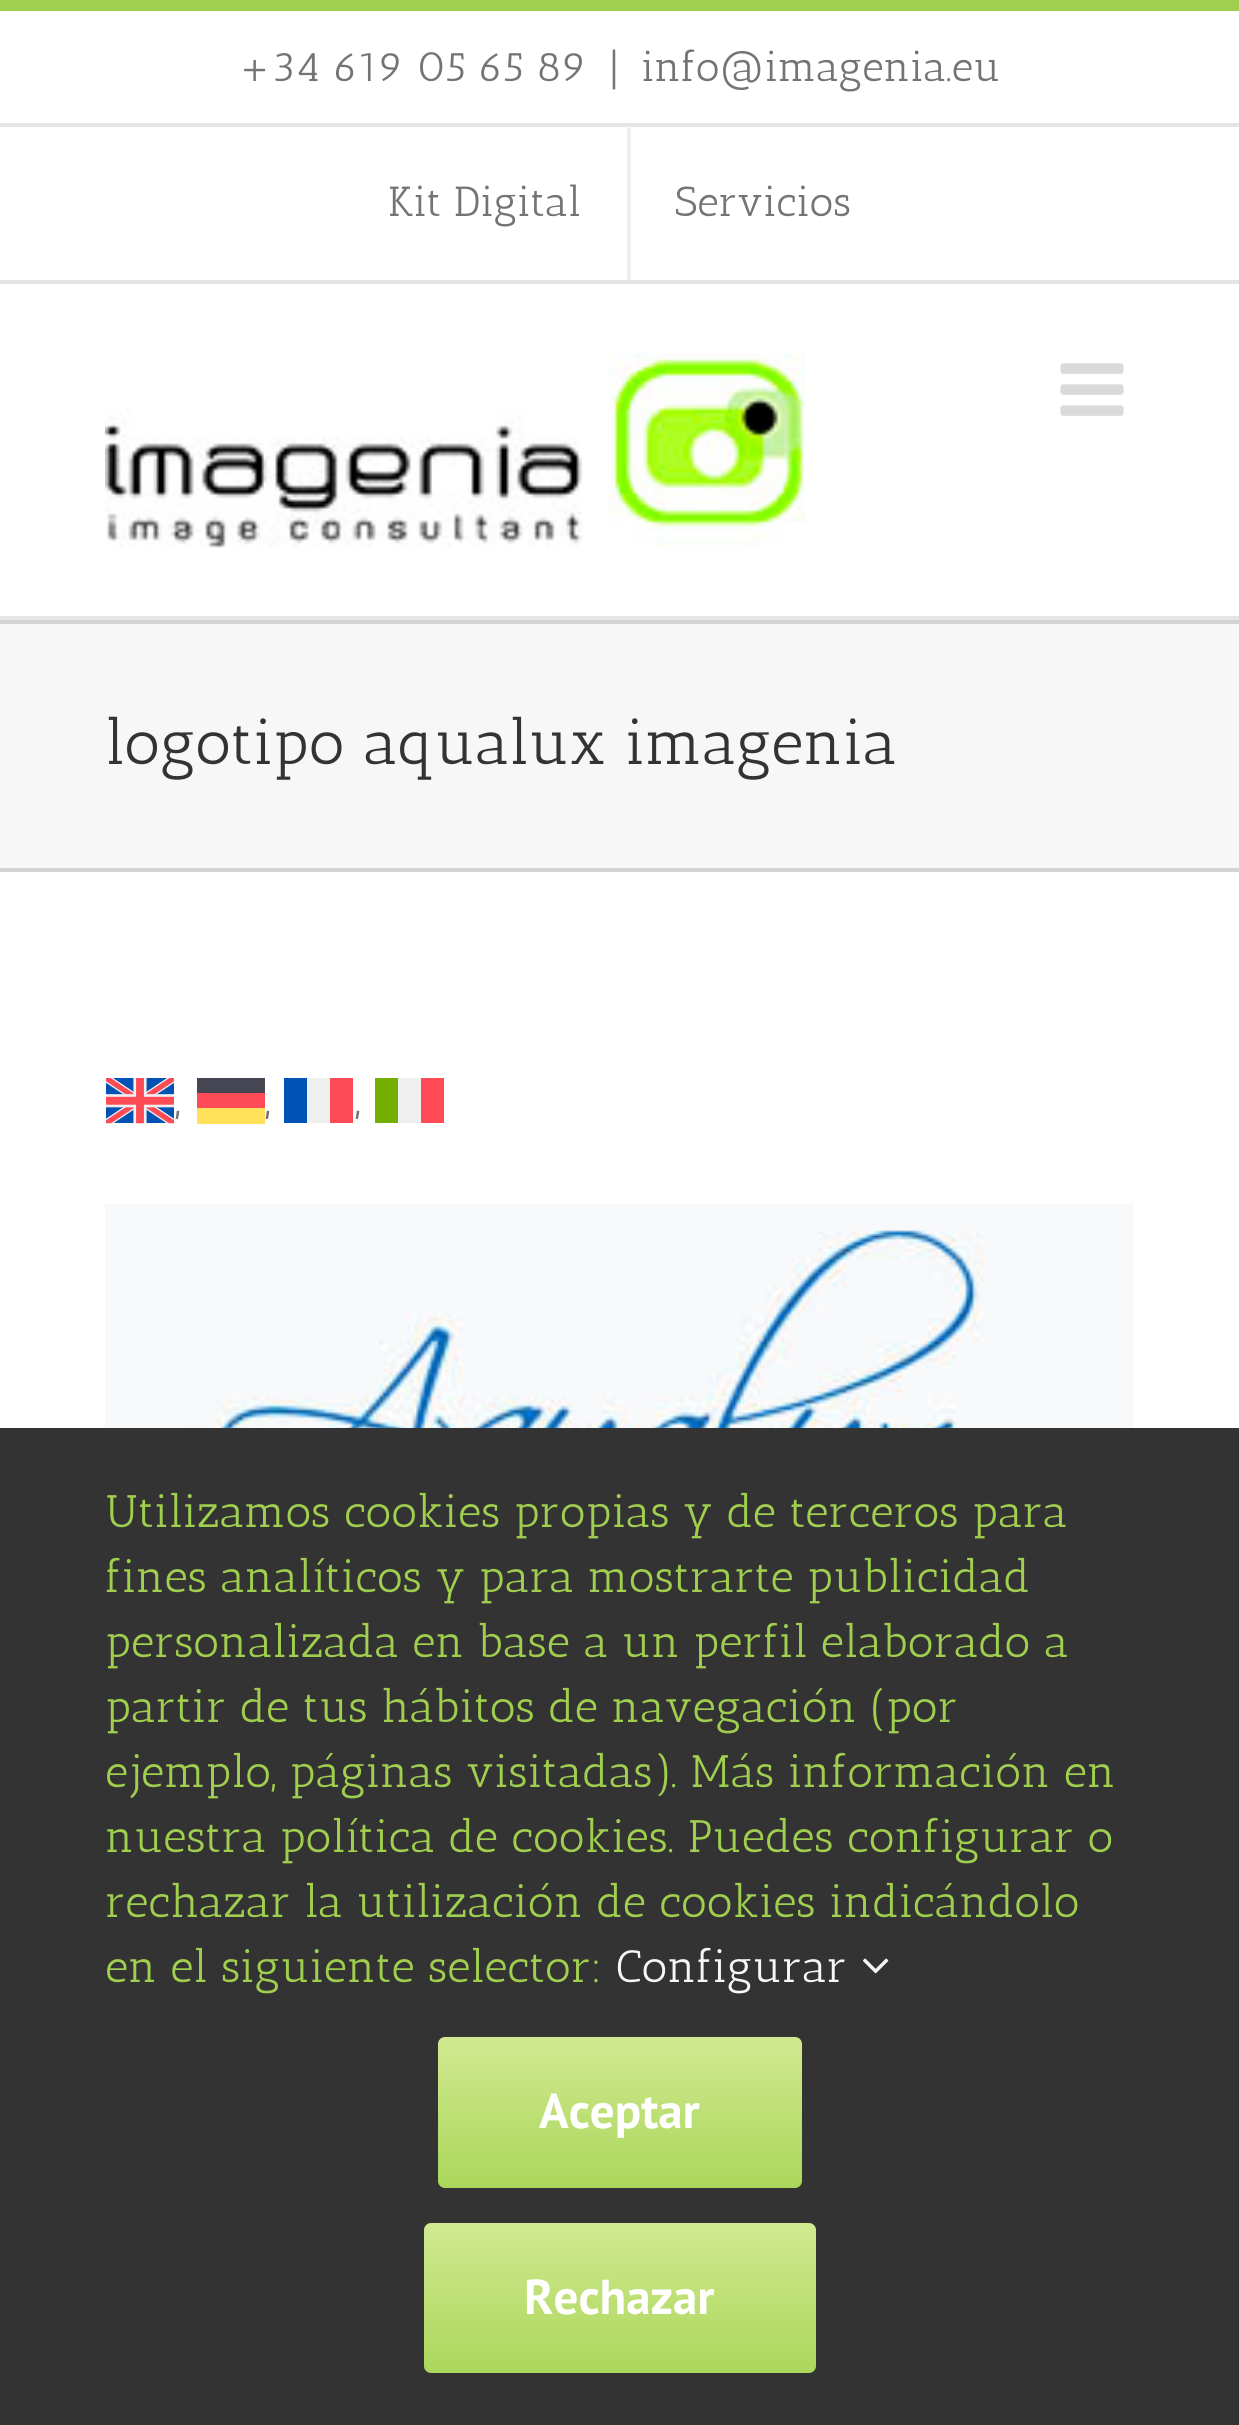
import math
import cairo


def round_path(ctx, x, y, w, h, r):
	ctx.new_sub_path()
	for i, (u, v) in enumerate([(x + w - r, y + h - r), (x + r, y + h - r), (x + r, y + r), (x + w - r, y + r)]):
		ctx.arc(u, v, r, i * math.pi / 2, (i + 1) * math.pi / 2)
	ctx.close_path()

def paste(ctx, path, x, y, w, h):
	ctx.save()
	ctx.set_source_surface(cairo.ImageSurface.create_from_png(path), x, y)
	ctx.rectangle(x, y, w, h)
	ctx.fill()
	ctx.restore()

def draw(ctx):
	ctx.set_source_rgb(1, 1, 1)
	ctx.paint()
	ctx.set_source_rgb(0.627, 0.808, 0.306)
	ctx.rectangle(0, 0, 1239, 11)
	ctx.fill()
	ctx.set_source_rgb(0.898, 0.898, 0.898)
	ctx.rectangle(0, 280, 1239, 4)
	ctx.rectangle(0, 123, 1239, 4)
	ctx.fill()
	ctx.select_font_face('Antic Slab')
	ctx.set_font_size(42)
	ctx.set_source_rgb(0.455, 0.455, 0.455)
	for x, y, s in [
		(238, 81, '+34 619 05 65 89'),
		(608, 81, '|'),
		(641, 81, 'info@imagenia.eu'),
		(388, 216, 'Kit Digital'),
	]:
		ctx.move_to(x, y)
		ctx.show_text(s)
	ctx.set_source_rgb(0.937, 0.937, 0.937)
	ctx.rectangle(627, 126, 4, 154)
	ctx.fill()
	ctx.set_source_rgb(0.455, 0.455, 0.455)
	ctx.move_to(675, 216)
	ctx.show_text('Servicios')
	ctx.set_source_rgb(0.898, 0.898, 0.898)
	ctx.rectangle(0, 616, 1239, 4)
	ctx.fill()
	paste(ctx, 'media/1.png', 105, 353, 700, 195)
	paste(ctx, 'media/2.png', 1060, 363, 64, 53)
	ctx.set_source_rgb(0.965, 0.965, 0.965)
	ctx.rectangle(0, 624, 1239, 244)
	ctx.fill()
	ctx.set_source_rgb(0.824, 0.827, 0.831)
	ctx.rectangle(0, 620, 1239, 4)
	ctx.rectangle(0, 868, 1239, 4)
	ctx.fill()
	ctx.set_font_size(63)
	ctx.set_source_rgb(0.2, 0.2, 0.2)
	ctx.move_to(105, 764)
	ctx.show_text('logotipo aqualux imagenia')
	paste(ctx, 'media/3.png', 106, 1078, 68, 46)
	ctx.set_font_size(49)
	ctx.set_source_rgb(0.455, 0.455, 0.455)
	ctx.move_to(175, 1114)
	ctx.show_text(',')
	ctx.set_source_rgb(0.275, 0.275, 0.333)
	ctx.rectangle(197, 1078, 68, 15)
	ctx.fill()
	ctx.set_source_rgb(1, 0.294, 0.333)
	ctx.rectangle(197, 1093, 68, 15)
	ctx.fill()
	ctx.set_source_rgb(1, 0.882, 0.353)
	ctx.rectangle(197, 1108, 68, 16)
	ctx.fill()
	ctx.set_source_rgb(0.455, 0.455, 0.455)
	ctx.move_to(265, 1114)
	ctx.show_text(',')
	ctx.set_source_rgb(0, 0.322, 0.706)
	ctx.rectangle(284, 1078, 23, 45)
	ctx.fill()
	ctx.set_source_rgb(0.941, 0.941, 0.941)
	ctx.rectangle(307, 1078, 23, 45)
	ctx.fill()
	ctx.set_source_rgb(1, 0.294, 0.333)
	ctx.rectangle(330, 1078, 23, 45)
	ctx.fill()
	ctx.set_source_rgb(0.455, 0.455, 0.455)
	ctx.move_to(355, 1114)
	ctx.show_text(',')
	ctx.set_source_rgb(0.451, 0.686, 0)
	ctx.rectangle(375, 1078, 23, 45)
	ctx.fill()
	ctx.set_source_rgb(0.941, 0.941, 0.941)
	ctx.rectangle(398, 1078, 23, 45)
	ctx.fill()
	ctx.set_source_rgb(1, 0.294, 0.333)
	ctx.rectangle(421, 1078, 23, 45)
	ctx.fill()
	paste(ctx, 'media/4.png', 105, 1204, 1029, 224)
	ctx.set_source_rgb(0.2, 0.2, 0.2)
	ctx.rectangle(0, 1428, 1239, 997)
	ctx.fill()
	ctx.set_font_size(45.5)
	ctx.set_source_rgb(0.627, 0.808, 0.306)
	for x, y, s in [
		(105, 1527, 'Utilizamos cookies propias y de terceros para'),
		(105, 1592, 'fines analíticos y para mostrarte publicidad'),
		(105, 1657, 'personalizada en base a un perfil elaborado a'),
		(105, 1722, 'partir de tus hábitos de navegación (por'),
		(105, 1787, 'ejemplo, páginas visitadas). Más información en'),
		(105, 1852, 'nuestra política de cookies. Puedes configurar o'),
		(105, 1917, 'rechazar la utilización de cookies indicándolo'),
		(105, 1982, 'en el siguiente selector:'),
	]:
		ctx.move_to(x, y)
		ctx.show_text(s)
	ctx.set_source_rgb(0.965, 0.965, 0.965)
	ctx.move_to(616, 1982)
	ctx.show_text('Configurar')
	paste(ctx, 'media/5.png', 863, 1958, 26, 16)
	gradient = cairo.LinearGradient(620, 2037, 620, 2188)
	gradient.add_color_stop_rgba(0, 0.82, 0.914, 0.565, 1)
	gradient.add_color_stop_rgba(1, 0.667, 0.843, 0.357, 1)
	ctx.set_source(gradient)
	round_path(ctx, 438, 2037, 364, 151, 7)
	ctx.fill()
	ctx.select_font_face('PT Sans', cairo.FONT_SLANT_NORMAL, cairo.FONT_WEIGHT_BOLD)
	ctx.set_font_size(49)
	ctx.set_source_rgb(1, 1, 1)
	ctx.move_to(539, 2128)
	ctx.show_text('Aceptar')
	gradient = cairo.LinearGradient(620, 2223, 620, 2373)
	gradient.add_color_stop_rgba(0, 0.82, 0.914, 0.565, 1)
	gradient.add_color_stop_rgba(1, 0.667, 0.843, 0.357, 1)
	ctx.set_source(gradient)
	round_path(ctx, 424, 2223, 392, 150, 7)
	ctx.fill()
	ctx.set_source_rgb(1, 1, 1)
	ctx.move_to(524, 2314)
	ctx.show_text('Rechazar')


surface = cairo.ImageSurface(cairo.FORMAT_RGB24, 1239, 2425)
ctx = cairo.Context(surface)
options = cairo.FontOptions()
options.set_hint_metrics(cairo.HINT_METRICS_OFF)
options.set_hint_style(cairo.HINT_STYLE_NONE)
ctx.set_font_options(options)
ctx.set_miter_limit(4)
draw(ctx)
surface.write_to_png('image.png')
